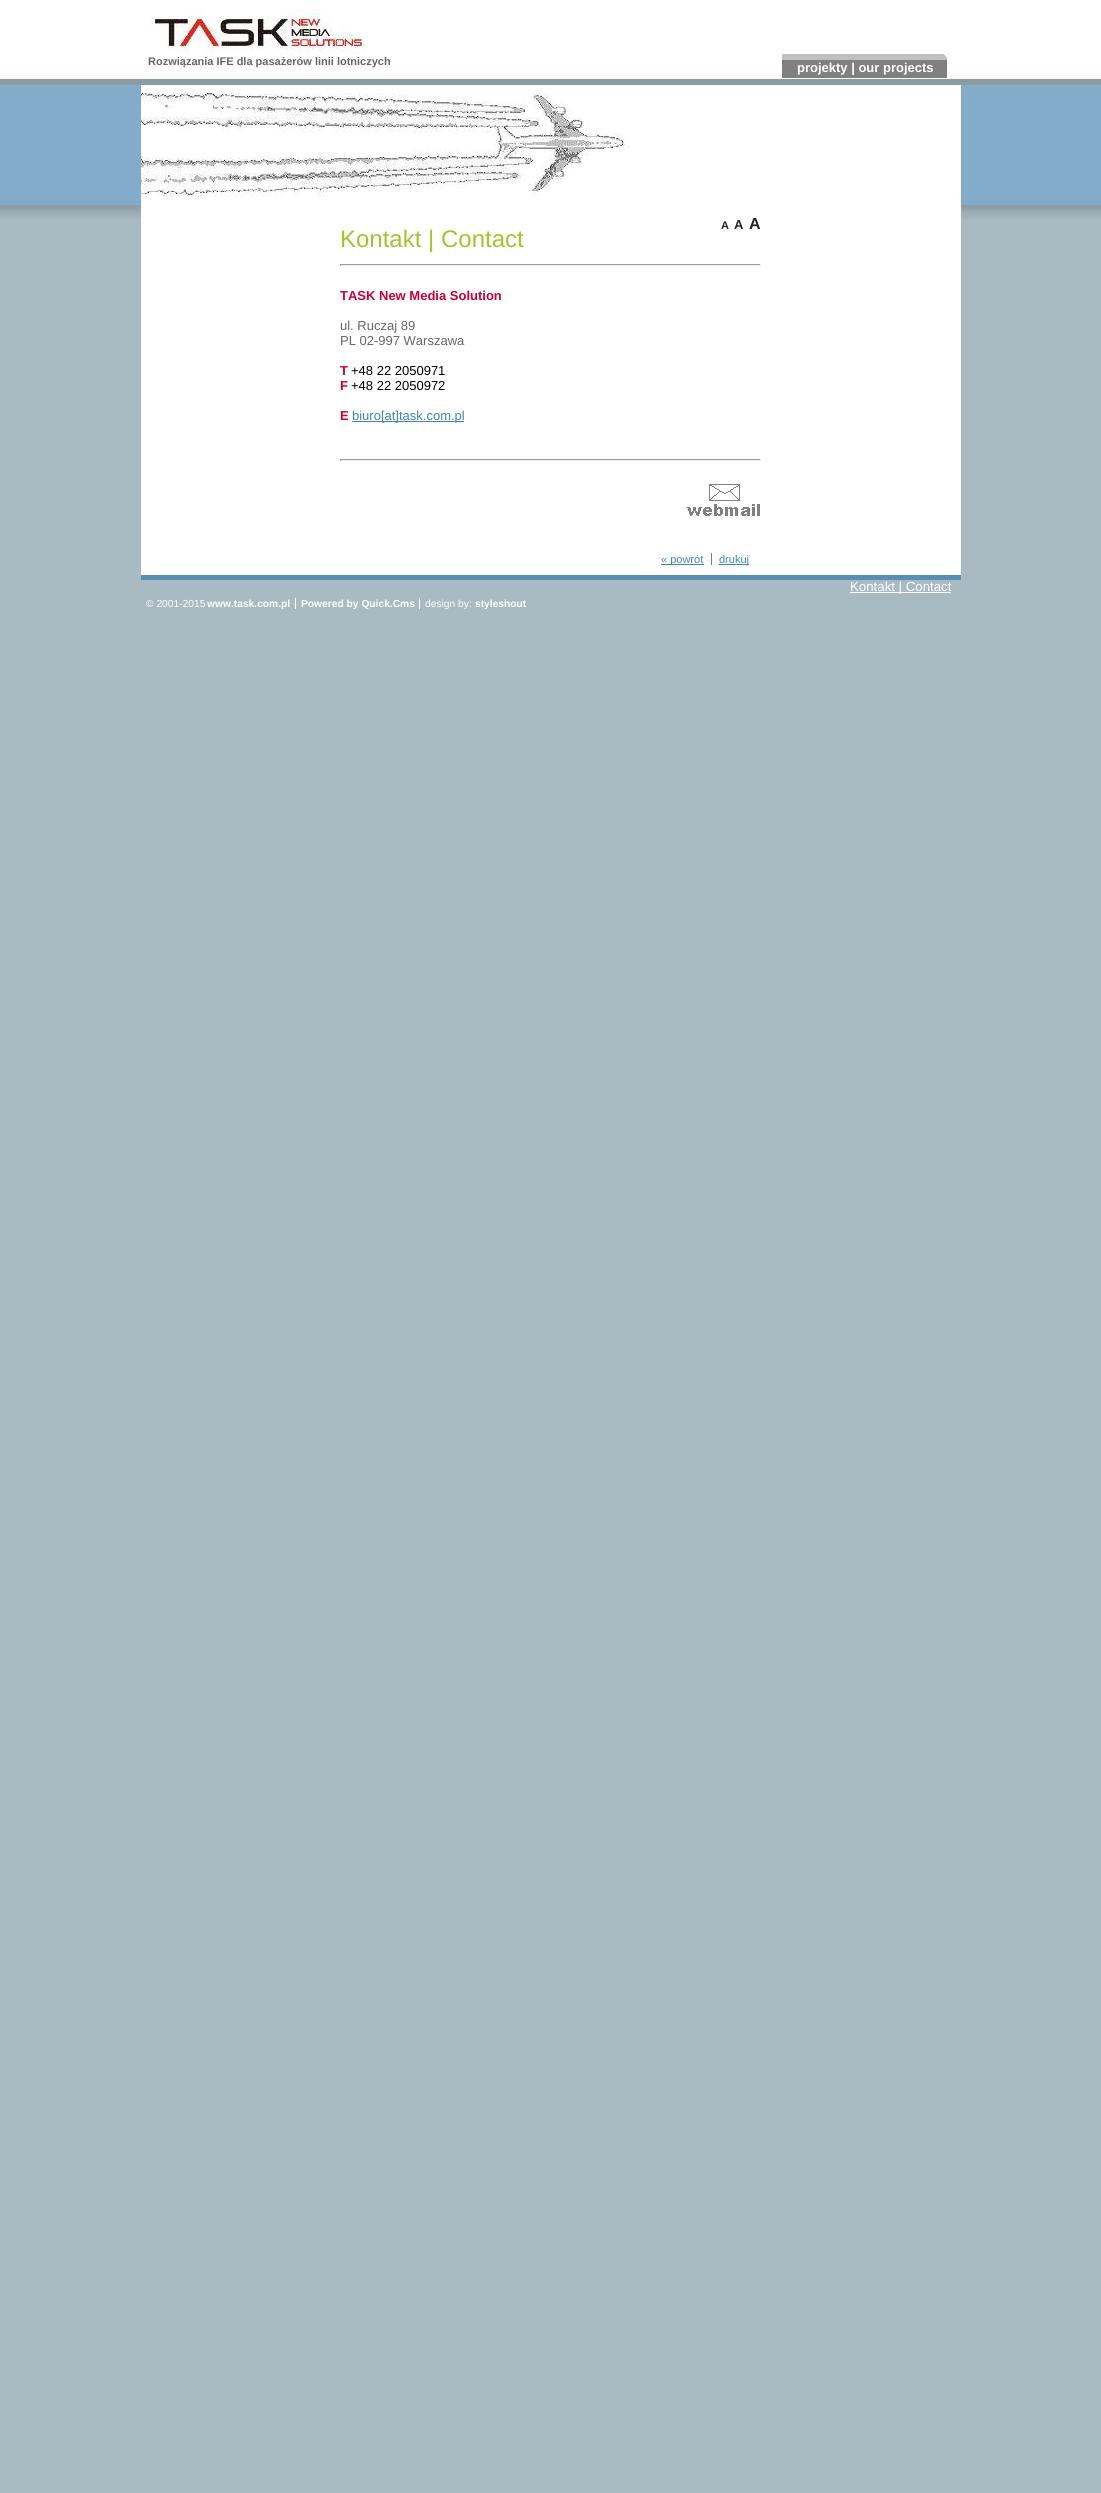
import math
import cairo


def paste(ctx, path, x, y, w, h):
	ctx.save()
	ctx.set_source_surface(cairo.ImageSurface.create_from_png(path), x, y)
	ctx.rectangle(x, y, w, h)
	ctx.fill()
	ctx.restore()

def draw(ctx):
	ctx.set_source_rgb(0.663, 0.729, 0.765)
	ctx.paint()
	paste(ctx, 'media/1.png', 0, 0, 1101, 219)
	paste(ctx, 'media/2.png', 141, 85, 820, 120)
	paste(ctx, 'media/3.png', 149, 10, 216, 45)
	ctx.select_font_face('Liberation Sans', cairo.FONT_SLANT_NORMAL, cairo.FONT_WEIGHT_BOLD)
	ctx.set_font_size(11)
	ctx.set_source_rgb(0.4, 0.4, 0.4)
	ctx.move_to(148, 65)
	ctx.show_text('Rozwiązania IFE dla pasażerów linii lotniczych')
	paste(ctx, 'media/4.png', 782, 54, 167, 24)
	ctx.set_font_size(13)
	ctx.set_source_rgb(1, 1, 1)
	ctx.move_to(797, 72)
	ctx.show_text('projekty | our projects')
	ctx.rectangle(141, 205, 820, 370)
	ctx.fill()
	ctx.set_source_rgb(0.337, 0.557, 0.714)
	ctx.rectangle(141, 575, 820, 5)
	ctx.fill()
	ctx.set_font_size(11)
	ctx.set_source_rgb(0.133, 0.133, 0.133)
	ctx.move_to(721, 229)
	ctx.show_text('A')
	ctx.set_font_size(13)
	ctx.move_to(734, 229)
	ctx.show_text('A')
	ctx.set_font_size(16)
	ctx.move_to(749, 229)
	ctx.show_text('A')
	ctx.select_font_face('Liberation Sans')
	ctx.set_font_size(24)
	ctx.set_source_rgb(0.62, 0.776, 0.188)
	ctx.move_to(340, 247)
	ctx.show_text('Kontakt | Contact')
	ctx.set_source_rgb(0.624, 0.624, 0.624)
	ctx.rectangle(340, 264, 421, 1)
	ctx.fill()
	ctx.set_source_rgb(0.933, 0.933, 0.933)
	ctx.rectangle(760, 264, 1, 2)
	ctx.rectangle(340, 265, 421, 1)
	ctx.fill()
	ctx.set_source_rgb(0.624, 0.624, 0.624)
	ctx.rectangle(340, 264, 1, 2)
	ctx.fill()
	ctx.select_font_face('Liberation Sans', cairo.FONT_SLANT_NORMAL, cairo.FONT_WEIGHT_BOLD)
	ctx.set_font_size(13)
	ctx.set_source_rgb(0.8, 0, 0.2)
	ctx.move_to(340, 300)
	ctx.show_text('TASK New Media Solution')
	ctx.select_font_face('Liberation Sans')
	ctx.set_source_rgb(0.4, 0.4, 0.4)
	ctx.move_to(340, 330)
	ctx.show_text('ul. Ruczaj 89')
	ctx.move_to(340, 345)
	ctx.show_text('PL 02-997 Warszawa')
	ctx.select_font_face('Liberation Sans', cairo.FONT_SLANT_NORMAL, cairo.FONT_WEIGHT_BOLD)
	ctx.set_source_rgb(0.8, 0, 0.2)
	ctx.move_to(340, 375)
	ctx.show_text('T')
	ctx.select_font_face('Liberation Sans')
	ctx.set_source_rgb(0, 0, 0)
	ctx.move_to(351, 375)
	ctx.show_text('+48 22 2050971')
	ctx.select_font_face('Liberation Sans', cairo.FONT_SLANT_NORMAL, cairo.FONT_WEIGHT_BOLD)
	ctx.set_source_rgb(0.8, 0, 0.2)
	ctx.move_to(340, 390)
	ctx.show_text('F')
	ctx.select_font_face('Liberation Sans')
	ctx.set_source_rgb(0, 0, 0)
	ctx.move_to(351, 390)
	ctx.show_text('+48 22 2050972')
	ctx.select_font_face('Liberation Sans', cairo.FONT_SLANT_NORMAL, cairo.FONT_WEIGHT_BOLD)
	ctx.set_source_rgb(0.8, 0, 0.2)
	ctx.move_to(340, 420)
	ctx.show_text('E')
	ctx.set_source_rgb(0.259, 0.518, 0.69)
	ctx.rectangle(352, 421, 112, 1)
	ctx.fill()
	ctx.select_font_face('Liberation Sans')
	ctx.move_to(352, 420)
	ctx.show_text('biuro[at]task.com.pl')
	ctx.set_source_rgb(0.624, 0.624, 0.624)
	ctx.rectangle(340, 459, 421, 1)
	ctx.fill()
	ctx.set_source_rgb(0.933, 0.933, 0.933)
	ctx.rectangle(760, 459, 1, 2)
	ctx.rectangle(340, 460, 421, 1)
	ctx.fill()
	ctx.set_source_rgb(0.624, 0.624, 0.624)
	ctx.rectangle(340, 459, 1, 2)
	ctx.fill()
	paste(ctx, 'media/5.png', 687, 484, 73, 32)
	ctx.set_source_rgb(0.259, 0.518, 0.69)
	ctx.rectangle(661, 564, 43, 1)
	ctx.fill()
	ctx.set_font_size(11)
	ctx.move_to(661, 563)
	ctx.show_text('« powrót')
	ctx.rectangle(719, 564, 30, 1)
	ctx.fill()
	ctx.move_to(719, 563)
	ctx.show_text('drukuj')
	ctx.set_source_rgb(0.498, 0.498, 0.4)
	ctx.rectangle(711, 553, 1, 12)
	ctx.fill()
	ctx.set_source_rgb(1, 1, 1)
	ctx.rectangle(850, 592, 101, 1)
	ctx.fill()
	ctx.set_font_size(13.25)
	ctx.move_to(850, 591)
	ctx.show_text('Kontakt | Contact')
	ctx.rectangle(295, 598, 1, 11)
	ctx.fill()
	ctx.set_font_size(10.25)
	ctx.move_to(146, 607)
	ctx.show_text('© 2001-2015')
	ctx.select_font_face('Liberation Sans', cairo.FONT_SLANT_NORMAL, cairo.FONT_WEIGHT_BOLD)
	ctx.move_to(207, 607)
	ctx.show_text('www.task.com.pl')
	ctx.move_to(301, 607)
	ctx.show_text('Powered by Quick.Cms')
	ctx.rectangle(419, 598, 1, 11)
	ctx.fill()
	ctx.select_font_face('Liberation Sans')
	ctx.move_to(425, 607)
	ctx.show_text('design by:')
	ctx.select_font_face('Liberation Sans', cairo.FONT_SLANT_NORMAL, cairo.FONT_WEIGHT_BOLD)
	ctx.move_to(475, 607)
	ctx.show_text('styleshout')


surface = cairo.ImageSurface(cairo.FORMAT_RGB24, 1101, 2493)
ctx = cairo.Context(surface)
options = cairo.FontOptions()
options.set_hint_metrics(cairo.HINT_METRICS_OFF)
options.set_hint_style(cairo.HINT_STYLE_NONE)
ctx.set_font_options(options)
ctx.set_miter_limit(4)
draw(ctx)
surface.write_to_png('image.png')
